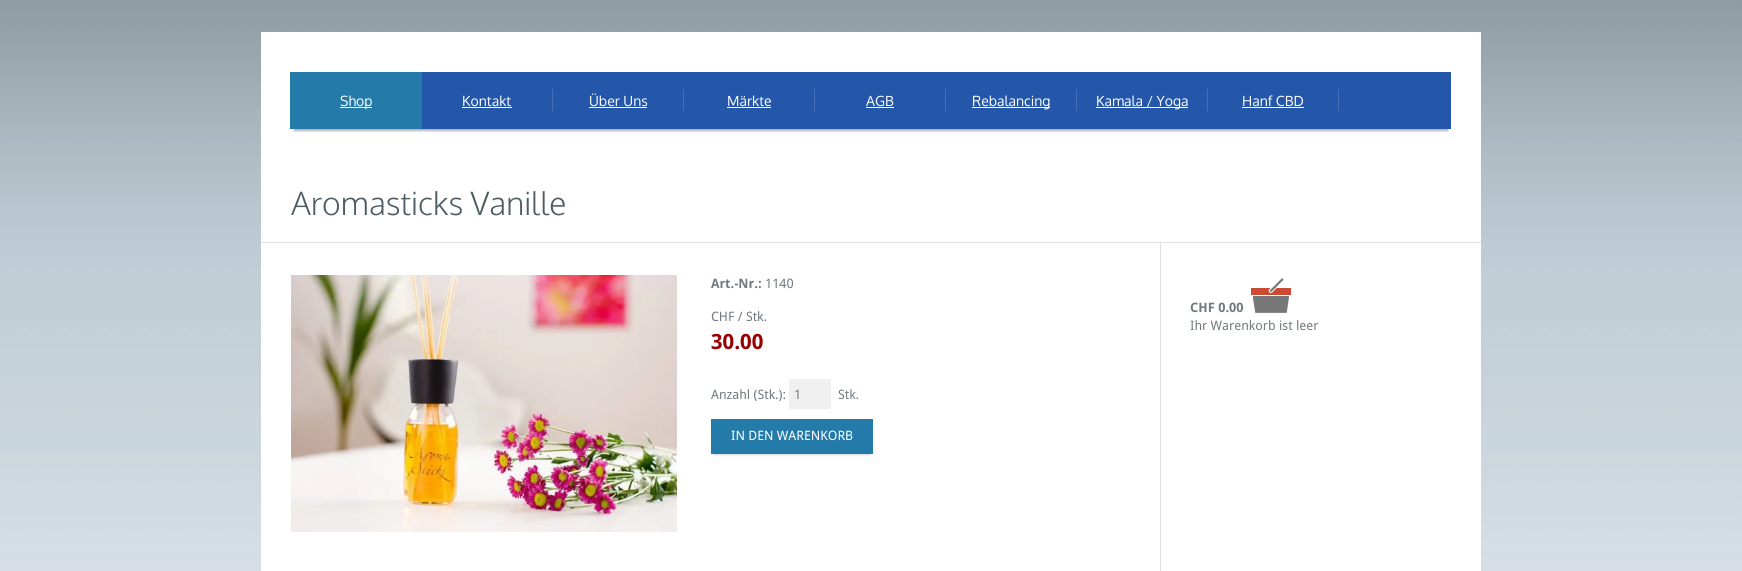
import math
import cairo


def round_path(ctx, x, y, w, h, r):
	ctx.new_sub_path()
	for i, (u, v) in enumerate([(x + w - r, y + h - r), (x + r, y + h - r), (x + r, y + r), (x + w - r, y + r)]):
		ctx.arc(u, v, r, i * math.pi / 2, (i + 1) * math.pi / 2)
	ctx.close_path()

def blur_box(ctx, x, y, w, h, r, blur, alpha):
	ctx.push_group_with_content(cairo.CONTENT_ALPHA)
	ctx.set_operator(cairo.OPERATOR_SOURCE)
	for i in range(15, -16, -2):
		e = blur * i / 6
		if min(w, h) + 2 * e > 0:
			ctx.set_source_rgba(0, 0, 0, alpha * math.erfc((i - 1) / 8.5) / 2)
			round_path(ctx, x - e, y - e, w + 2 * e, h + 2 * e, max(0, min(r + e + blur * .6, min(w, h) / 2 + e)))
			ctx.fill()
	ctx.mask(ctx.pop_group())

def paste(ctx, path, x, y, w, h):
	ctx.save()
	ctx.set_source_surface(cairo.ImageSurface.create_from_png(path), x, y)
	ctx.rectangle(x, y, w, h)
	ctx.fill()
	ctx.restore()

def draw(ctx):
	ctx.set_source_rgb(1, 1, 1)
	ctx.paint()
	paste(ctx, 'media/1.png', 0, 0, 1742, 571)
	ctx.set_source_rgb(1, 1, 1)
	ctx.rectangle(261, 32, 1220, 210)
	ctx.fill()
	ctx.set_source_rgb(0, 0, 0)
	blur_box(ctx, 294, 80, 1154, 51, 0, 1, 0.3)
	ctx.set_source_rgb(0.141, 0.341, 0.667)
	ctx.rectangle(422, 72, 1029, 57)
	ctx.fill()
	ctx.set_source_rgb(0.141, 0.482, 0.667)
	ctx.rectangle(290, 72, 132, 57)
	ctx.fill()
	ctx.set_source_rgb(1, 1, 1)
	ctx.rectangle(340, 107, 32, 1)
	ctx.fill()
	ctx.select_font_face('Oxygen')
	ctx.set_font_size(14)
	ctx.move_to(340, 106)
	ctx.show_text('Shop')
	ctx.move_to(462, 106)
	ctx.show_text('Kontakt')
	ctx.rectangle(462, 107, 50, 1)
	ctx.fill()
	ctx.set_source_rgb(0.271, 0.439, 0.718)
	ctx.rectangle(552, 89, 1, 22)
	ctx.fill()
	ctx.set_source_rgb(1, 1, 1)
	ctx.move_to(589, 106)
	ctx.show_text('Über Uns')
	ctx.rectangle(589, 107, 58, 1)
	ctx.fill()
	ctx.set_source_rgb(0.271, 0.439, 0.718)
	ctx.rectangle(683, 89, 1, 22)
	ctx.fill()
	ctx.set_source_rgb(1, 1, 1)
	ctx.move_to(727, 106)
	ctx.show_text('Märkte')
	ctx.rectangle(727, 107, 44, 1)
	ctx.fill()
	ctx.set_source_rgb(0.271, 0.439, 0.718)
	ctx.rectangle(814, 89, 1, 22)
	ctx.fill()
	ctx.set_source_rgb(1, 1, 1)
	ctx.move_to(866, 106)
	ctx.show_text('AGB')
	ctx.rectangle(866, 107, 28, 1)
	ctx.fill()
	ctx.set_source_rgb(0.271, 0.439, 0.718)
	ctx.rectangle(945, 89, 1, 22)
	ctx.fill()
	ctx.set_source_rgb(1, 1, 1)
	ctx.rectangle(972, 107, 78, 1)
	ctx.fill()
	ctx.move_to(972, 106)
	ctx.show_text('Rebalancing')
	ctx.set_source_rgb(0.271, 0.439, 0.718)
	ctx.rectangle(1076, 89, 1, 22)
	ctx.fill()
	ctx.set_source_rgb(1, 1, 1)
	ctx.rectangle(1096, 107, 92, 1)
	ctx.fill()
	ctx.move_to(1096, 106)
	ctx.show_text('Kamala / Yoga')
	ctx.set_source_rgb(0.271, 0.439, 0.718)
	ctx.rectangle(1207, 89, 1, 22)
	ctx.fill()
	ctx.set_source_rgb(1, 1, 1)
	ctx.move_to(1242, 106)
	ctx.show_text('Hanf CBD')
	ctx.rectangle(1242, 107, 62, 1)
	ctx.fill()
	ctx.set_source_rgb(0.271, 0.439, 0.718)
	ctx.rectangle(1338, 89, 1, 22)
	ctx.fill()
	ctx.select_font_face('Oxygen Light')
	ctx.set_font_size(32)
	ctx.set_source_rgb(0.306, 0.361, 0.392)
	ctx.move_to(291, 215)
	ctx.show_text('Aromasticks Vanille')
	ctx.set_source_rgb(0.878, 0.878, 0.878)
	ctx.rectangle(261, 242, 1220, 1)
	ctx.fill()
	ctx.set_source_rgb(1, 1, 1)
	ctx.rectangle(261, 243, 1220, 328)
	ctx.fill()
	paste(ctx, 'media/2.png', 291, 275, 386, 257)
	ctx.select_font_face('Droid Sans', cairo.FONT_SLANT_NORMAL, cairo.FONT_WEIGHT_BOLD)
	ctx.set_font_size(13)
	ctx.set_source_rgb(0.447, 0.478, 0.494)
	ctx.move_to(711, 288)
	ctx.show_text('Art.-Nr.:')
	ctx.select_font_face('Droid Sans')
	ctx.move_to(765, 288)
	ctx.show_text('1140')
	ctx.move_to(711, 321)
	ctx.show_text('CHF / Stk.')
	ctx.select_font_face('Droid Sans', cairo.FONT_SLANT_NORMAL, cairo.FONT_WEIGHT_BOLD)
	ctx.set_font_size(21)
	ctx.set_source_rgb(0.6, 0, 0)
	ctx.move_to(711, 349)
	ctx.show_text('30.00')
	ctx.select_font_face('Droid Sans')
	ctx.set_font_size(13)
	ctx.set_source_rgb(0.447, 0.478, 0.494)
	ctx.move_to(711, 399)
	ctx.show_text('Anzahl (Stk.):')
	ctx.set_source_rgb(0.941, 0.941, 0.941)
	ctx.rectangle(789, 379, 42, 30)
	ctx.fill()
	ctx.set_source_rgb(0.447, 0.478, 0.494)
	ctx.move_to(794, 399)
	ctx.show_text('1')
	ctx.move_to(838, 399)
	ctx.show_text('Stk.')
	ctx.set_source_rgb(0, 0, 0)
	blur_box(ctx, 714, 425, 156, 29, 0, 1.5, 0.3)
	ctx.set_source_rgb(0.141, 0.482, 0.667)
	ctx.rectangle(711, 419, 162, 35)
	ctx.fill()
	ctx.set_source_rgb(1, 1, 1)
	ctx.move_to(731, 440)
	ctx.show_text('IN DEN WARENKORB')
	ctx.set_source_rgb(0.878, 0.878, 0.878)
	ctx.rectangle(1160, 243, 1, 328)
	ctx.fill()
	ctx.select_font_face('Droid Sans', cairo.FONT_SLANT_NORMAL, cairo.FONT_WEIGHT_BOLD)
	ctx.set_source_rgb(0.447, 0.478, 0.494)
	ctx.move_to(1190, 312)
	ctx.show_text('CHF 0.00')
	paste(ctx, 'media/3.png', 1251, 278, 40, 35)
	ctx.select_font_face('Droid Sans')
	ctx.move_to(1190, 330)
	ctx.show_text('Ihr Warenkorb ist leer')


surface = cairo.ImageSurface(cairo.FORMAT_RGB24, 1742, 571)
ctx = cairo.Context(surface)
options = cairo.FontOptions()
options.set_hint_metrics(cairo.HINT_METRICS_OFF)
options.set_hint_style(cairo.HINT_STYLE_NONE)
ctx.set_font_options(options)
ctx.set_miter_limit(4)
draw(ctx)
surface.write_to_png('image.png')
